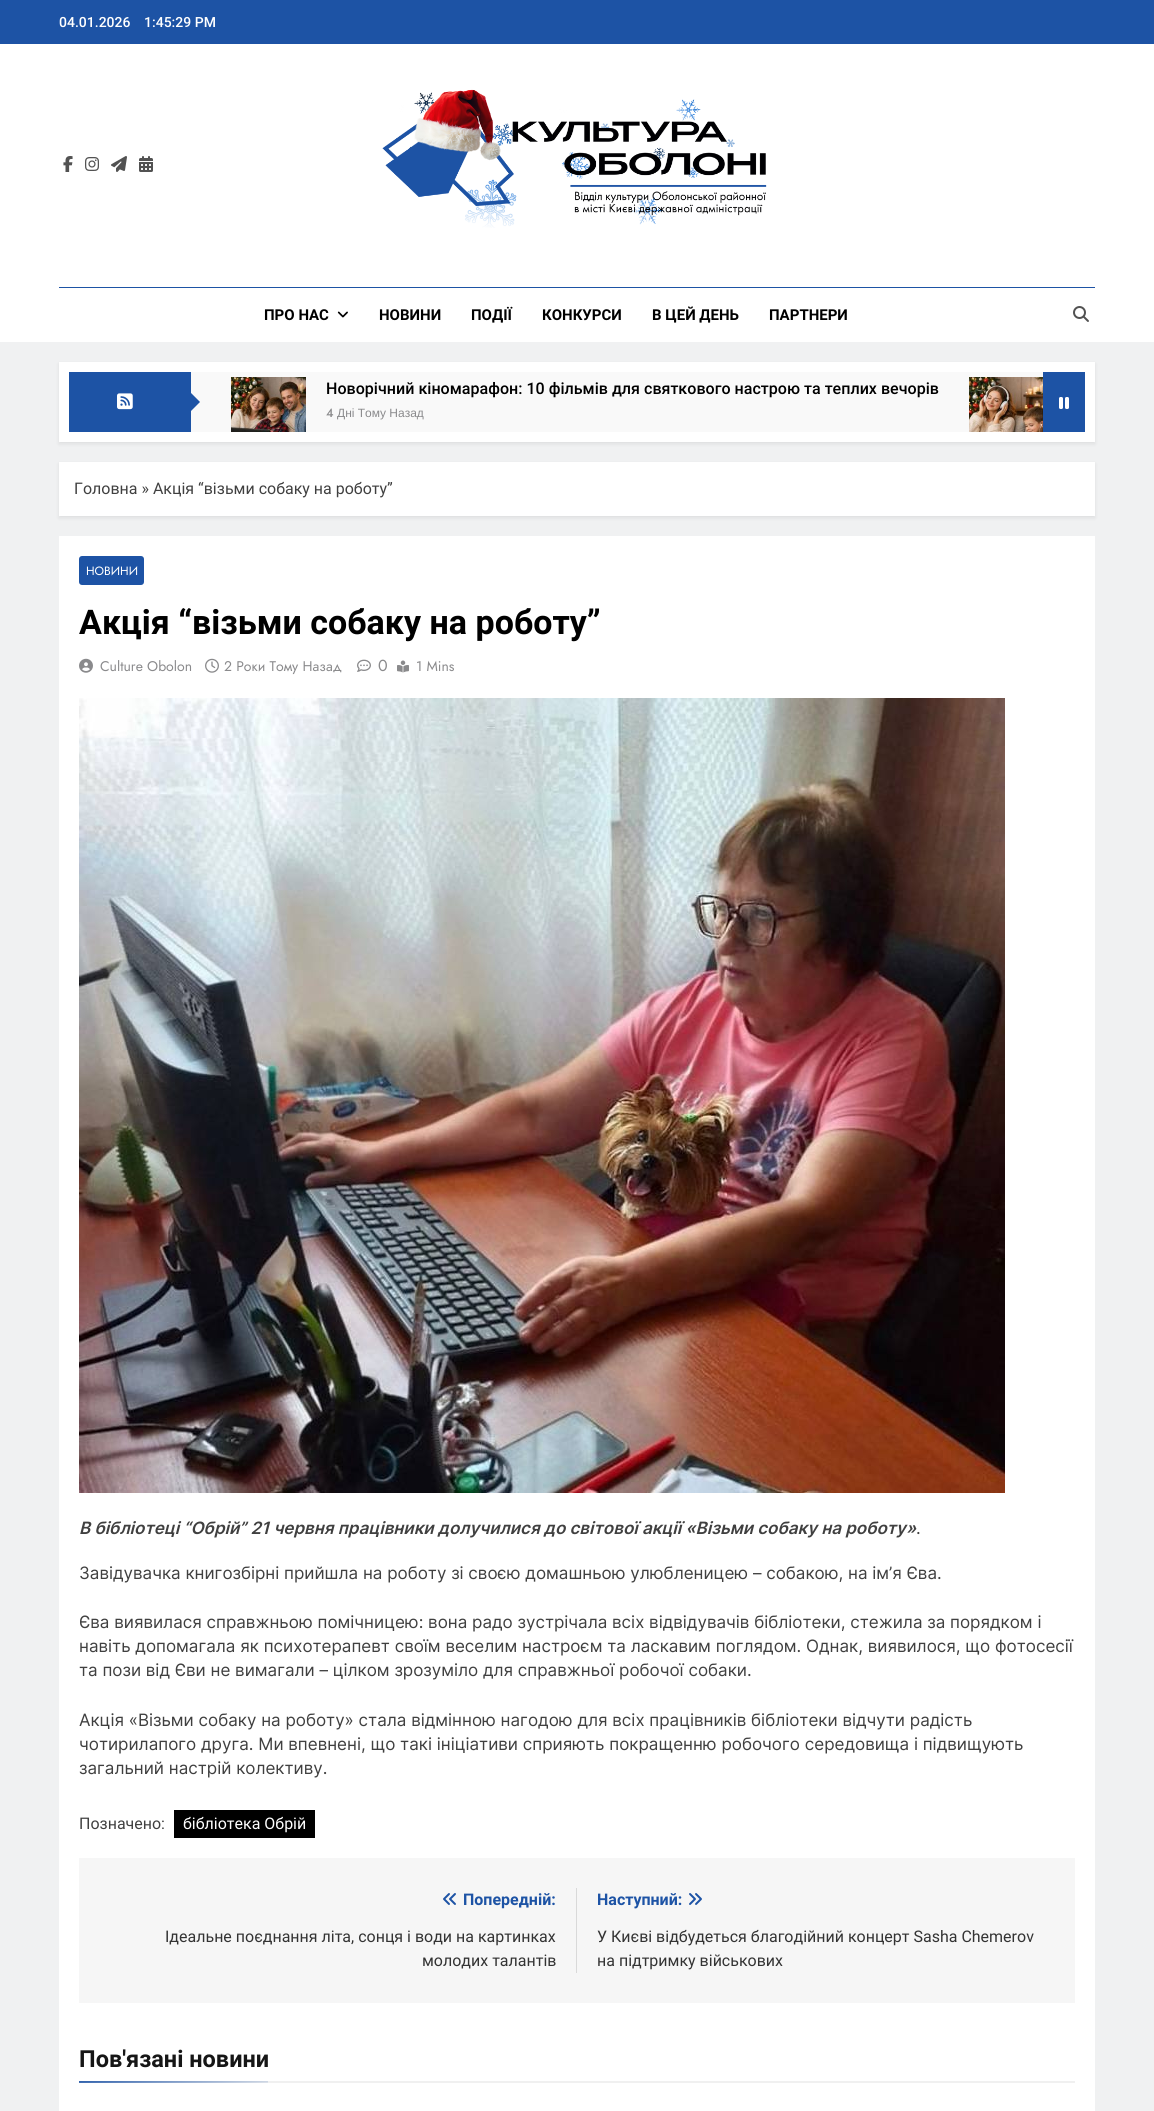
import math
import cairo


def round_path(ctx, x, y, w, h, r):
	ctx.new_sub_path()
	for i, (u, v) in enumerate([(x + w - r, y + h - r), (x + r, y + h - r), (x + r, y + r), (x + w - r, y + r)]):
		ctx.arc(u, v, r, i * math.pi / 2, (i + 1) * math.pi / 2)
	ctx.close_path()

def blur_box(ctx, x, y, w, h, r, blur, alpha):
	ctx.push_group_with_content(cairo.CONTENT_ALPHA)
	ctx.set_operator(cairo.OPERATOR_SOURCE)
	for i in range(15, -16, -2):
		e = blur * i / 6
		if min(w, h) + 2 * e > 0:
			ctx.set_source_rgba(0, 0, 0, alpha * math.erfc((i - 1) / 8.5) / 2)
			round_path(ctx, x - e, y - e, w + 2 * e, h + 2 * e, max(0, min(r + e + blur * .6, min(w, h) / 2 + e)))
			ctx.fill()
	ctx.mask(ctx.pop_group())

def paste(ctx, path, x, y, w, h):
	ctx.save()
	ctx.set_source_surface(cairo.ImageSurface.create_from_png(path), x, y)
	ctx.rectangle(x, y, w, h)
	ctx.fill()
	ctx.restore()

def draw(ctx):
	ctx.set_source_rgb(0.941, 0.945, 0.949)
	ctx.paint()
	ctx.set_source_rgb(0.114, 0.325, 0.647)
	ctx.rectangle(0, 0, 1154, 44)
	ctx.fill()
	ctx.select_font_face('Roboto Medium')
	ctx.set_font_size(14)
	ctx.set_source_rgb(1, 1, 1)
	ctx.move_to(59, 27)
	ctx.show_text('04.01.2026')
	ctx.move_to(144, 27)
	ctx.show_text('1:45:29 PM')
	ctx.rectangle(0, 44, 1154, 298)
	ctx.fill()
	paste(ctx, 'media/1.png', 63, 156, 10, 16)
	paste(ctx, 'media/2.png', 85, 157, 14, 14)
	paste(ctx, 'media/3.png', 111, 156, 16, 16)
	paste(ctx, 'media/4.png', 139, 156, 14, 16)
	paste(ctx, 'media/5.png', 382, 89, 385, 139)
	ctx.set_source_rgb(0.114, 0.325, 0.647)
	ctx.rectangle(59, 287, 1036, 1)
	ctx.fill()
	ctx.select_font_face('Roboto', cairo.FONT_SLANT_NORMAL, cairo.FONT_WEIGHT_BOLD)
	ctx.set_font_size(15)
	ctx.set_source_rgb(0, 0, 0)
	ctx.move_to(264, 320)
	ctx.show_text('ПРО НАС')
	paste(ctx, 'media/6.png', 337, 311, 11, 7)
	for x, y, s in [
		(379, 320, 'НОВИНИ'),
		(471, 320, 'ПОДІЇ'),
		(542, 320, 'КОНКУРСИ'),
		(652, 320, 'В ЦЕЙ ДЕНЬ'),
		(769, 320, 'ПАРТНЕРИ'),
	]:
		ctx.move_to(x, y)
		ctx.show_text(s)
	paste(ctx, 'media/7.png', 1073, 306, 16, 16)
	ctx.set_source_rgb(0, 0, 0)
	blur_box(ctx, 59, 364, 1036, 80, 0, 2, 0.08)
	ctx.set_source_rgb(1, 1, 1)
	ctx.rectangle(59, 362, 1036, 80)
	ctx.fill()
	ctx.set_source_rgb(0.114, 0.325, 0.647)
	ctx.rectangle(69, 372, 122, 60)
	ctx.fill()
	paste(ctx, 'media/8.png', 117, 393, 16, 17)
	ctx.set_source_rgb(0.976, 0.976, 0.976)
	ctx.rectangle(191, 372, 852, 60)
	ctx.fill()
	ctx.set_source_rgb(0.114, 0.325, 0.647)
	ctx.new_path()
	ctx.move_to(190, 412)
	ctx.line_to(190, 392)
	ctx.line_to(200, 402)
	ctx.close_path()
	ctx.fill()
	paste(ctx, 'media/9.png', 231, 377, 75, 55)
	ctx.select_font_face('Roboto Medium')
	ctx.set_font_size(16.05)
	ctx.set_source_rgb(0, 0, 0)
	ctx.move_to(326, 394)
	ctx.show_text('Новорічний кіномарафон: 10 фільмів для святкового настрою та теплих вечорів')
	ctx.select_font_face('Jost Medium')
	ctx.set_font_size(12)
	ctx.set_source_rgb(0.541, 0.541, 0.549)
	ctx.move_to(326, 417)
	ctx.show_text('4')
	ctx.select_font_face('Liberation Sans')
	ctx.move_to(337, 417)
	ctx.show_text('Дні Тому Назад')
	paste(ctx, 'media/10.png', 969, 377, 74, 55)
	ctx.set_source_rgb(0.114, 0.325, 0.647)
	ctx.rectangle(1043, 372, 42, 60)
	ctx.fill()
	paste(ctx, 'media/11.png', 1059, 397, 10, 12)
	ctx.set_source_rgb(0, 0, 0)
	blur_box(ctx, 59, 464, 1036, 54, 0, 2, 0.08)
	ctx.set_source_rgb(1, 1, 1)
	ctx.rectangle(59, 462, 1036, 54)
	ctx.fill()
	ctx.select_font_face('Roboto')
	ctx.set_font_size(16)
	ctx.set_source_rgb(0.251, 0.251, 0.251)
	ctx.move_to(74, 494)
	ctx.show_text('Головна » Акція “візьми собаку на роботу”')
	ctx.set_source_rgb(1, 1, 1)
	ctx.rectangle(59, 536, 1036, 1575)
	ctx.fill()
	ctx.set_source_rgb(0.114, 0.325, 0.647)
	round_path(ctx, 79, 556, 65, 29, 3)
	ctx.fill()
	ctx.select_font_face('Jost')
	ctx.set_font_size(12)
	ctx.set_source_rgb(1, 1, 1)
	ctx.move_to(86, 575)
	ctx.show_text('НОВИНИ')
	ctx.select_font_face('Roboto', cairo.FONT_SLANT_NORMAL, cairo.FONT_WEIGHT_BOLD)
	ctx.set_font_size(34)
	ctx.set_source_rgb(0, 0, 0)
	ctx.move_to(79, 634)
	ctx.show_text('Акція “візьми собаку на роботу”')
	paste(ctx, 'media/12.png', 79, 658, 14, 15)
	ctx.select_font_face('Jost')
	ctx.set_font_size(14)
	ctx.set_source_rgb(0.541, 0.541, 0.549)
	ctx.move_to(100, 671)
	ctx.show_text('Culture Obolon')
	paste(ctx, 'media/13.png', 205, 658, 14, 15)
	ctx.move_to(224, 671)
	ctx.show_text('2 Роки Тому Назад')
	paste(ctx, 'media/14.png', 357, 659, 14, 13)
	ctx.set_font_size(16)
	ctx.move_to(378, 671)
	ctx.show_text('0')
	paste(ctx, 'media/15.png', 397, 660, 12, 13)
	ctx.set_font_size(14)
	ctx.move_to(416, 671)
	ctx.show_text('1 Mins')
	paste(ctx, 'media/16.png', 79, 698, 926, 795)
	ctx.select_font_face('Inter SemiBold', cairo.FONT_SLANT_ITALIC)
	ctx.set_font_size(17)
	ctx.set_source_rgb(0.251, 0.251, 0.251)
	ctx.move_to(79, 1534)
	ctx.show_text('В бібліотеці “Обрій” 21 червня працівники долучилися до світової акції «Візьми собаку на роботу»')
	ctx.select_font_face('Inter')
	for x, y, s in [
		(916, 1534, '.'),
		(79, 1579, 'Завідувачка книгозбірні прийшла на роботу зі своєю домашньою улюбленицею – собакою, на ім’я Єва.'),
		(79, 1628, 'Єва виявилася справжньою помічницею: вона радо зустрічала всіх відвідувачів бібліотеки, стежила за порядком і'),
		(79, 1652, 'навіть допомагала як психотерапевт своїм веселим настроєм та ласкавим поглядом. Однак, виявилося, що фотосесії'),
		(79, 1676, 'та пози від Єви не вимагали – цілком зрозуміло для справжньої робочої собаки.'),
		(79, 1726, 'Акція «Візьми собаку на роботу» стала відмінною нагодою для всіх працівників бібліотеки відчути радість'),
		(79, 1750, 'чотирилапого друга. Ми впевнені, що такі ініціативи сприяють покращенню робочого середовища і підвищують'),
		(79, 1774, 'загальний настрій колективу.'),
	]:
		ctx.move_to(x, y)
		ctx.show_text(s)
	ctx.select_font_face('Roboto')
	ctx.set_font_size(16)
	ctx.move_to(79, 1829)
	ctx.show_text('Позначено:')
	ctx.set_source_rgb(0, 0, 0)
	ctx.rectangle(174, 1810, 141, 28)
	ctx.fill()
	ctx.set_source_rgb(1, 1, 1)
	ctx.move_to(183, 1829)
	ctx.show_text('бібліотека Обрій')
	ctx.set_source_rgb(0.961, 0.961, 0.961)
	ctx.rectangle(79, 1858, 996, 145)
	ctx.fill()
	ctx.set_source_rgb(0.851, 0.851, 0.851)
	ctx.rectangle(576, 1888, 1, 85)
	ctx.fill()
	paste(ctx, 'media/17.png', 443, 1893, 13, 12)
	ctx.select_font_face('Roboto', cairo.FONT_SLANT_NORMAL, cairo.FONT_WEIGHT_BOLD)
	ctx.set_source_rgb(0.114, 0.325, 0.647)
	ctx.move_to(463, 1905)
	ctx.show_text('Попередній:')
	ctx.select_font_face('Roboto')
	ctx.set_source_rgb(0.2, 0.2, 0.2)
	ctx.move_to(165, 1942)
	ctx.show_text('Ідеальне поєднання літа, сонця і води на картинках')
	ctx.move_to(422, 1966)
	ctx.show_text('молодих талантів')
	ctx.select_font_face('Roboto', cairo.FONT_SLANT_NORMAL, cairo.FONT_WEIGHT_BOLD)
	ctx.set_source_rgb(0.114, 0.325, 0.647)
	ctx.move_to(597, 1905)
	ctx.show_text('Наступний:')
	paste(ctx, 'media/18.png', 689, 1893, 13, 12)
	ctx.select_font_face('Roboto')
	ctx.set_source_rgb(0.2, 0.2, 0.2)
	ctx.move_to(597, 1942)
	ctx.show_text('У Києві відбудеться благодійний концерт Sasha Chemerov')
	ctx.move_to(597, 1966)
	ctx.show_text('на підтримку військових')
	ctx.set_source_rgb(0.941, 0.941, 0.941)
	ctx.rectangle(268, 2081, 807, 2)
	ctx.fill()
	ctx.select_font_face('Roboto', cairo.FONT_SLANT_NORMAL, cairo.FONT_WEIGHT_BOLD)
	ctx.set_font_size(23.5)
	ctx.set_source_rgb(0.086, 0.086, 0.086)
	ctx.move_to(79, 2067)
	ctx.show_text('Пов\'язані новини')
	gradient = cairo.LinearGradient(173, 2074, 174, 2090)
	gradient.add_color_stop_rgba(0, 0.114, 0.325, 0.647, 1)
	gradient.add_color_stop_rgba(1, 0.941, 0.941, 0.941, 1)
	ctx.set_source(gradient)
	ctx.rectangle(79, 2081, 189, 2)
	ctx.fill()


surface = cairo.ImageSurface(cairo.FORMAT_RGB24, 1154, 2111)
ctx = cairo.Context(surface)
options = cairo.FontOptions()
options.set_hint_metrics(cairo.HINT_METRICS_OFF)
options.set_hint_style(cairo.HINT_STYLE_NONE)
ctx.set_font_options(options)
ctx.set_miter_limit(4)
draw(ctx)
surface.write_to_png('image.png')
